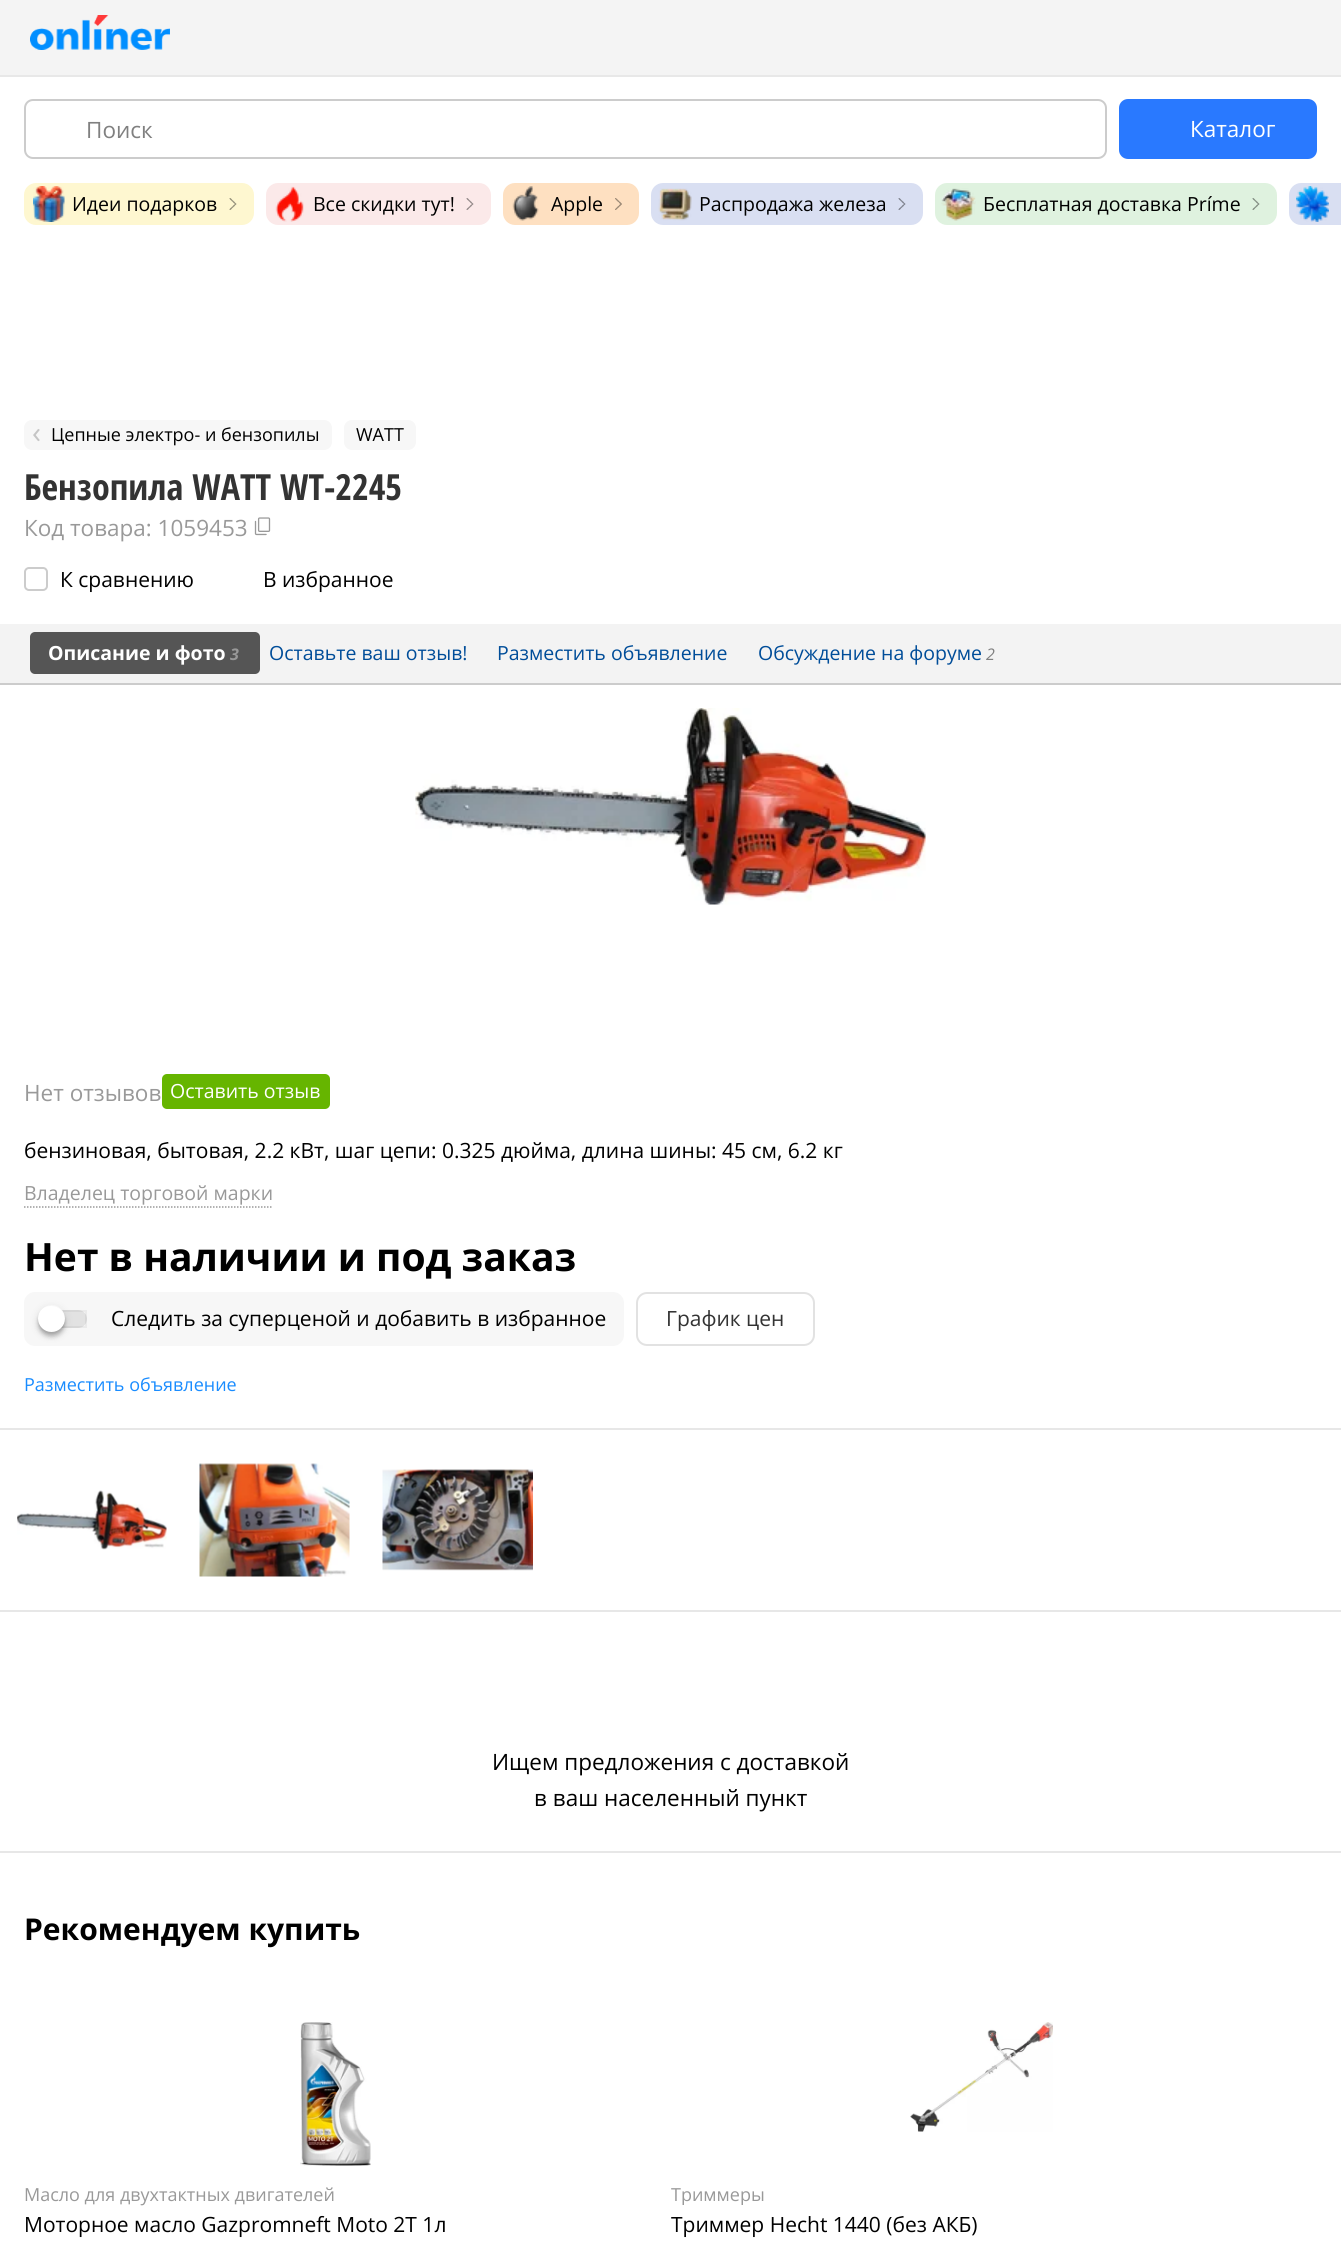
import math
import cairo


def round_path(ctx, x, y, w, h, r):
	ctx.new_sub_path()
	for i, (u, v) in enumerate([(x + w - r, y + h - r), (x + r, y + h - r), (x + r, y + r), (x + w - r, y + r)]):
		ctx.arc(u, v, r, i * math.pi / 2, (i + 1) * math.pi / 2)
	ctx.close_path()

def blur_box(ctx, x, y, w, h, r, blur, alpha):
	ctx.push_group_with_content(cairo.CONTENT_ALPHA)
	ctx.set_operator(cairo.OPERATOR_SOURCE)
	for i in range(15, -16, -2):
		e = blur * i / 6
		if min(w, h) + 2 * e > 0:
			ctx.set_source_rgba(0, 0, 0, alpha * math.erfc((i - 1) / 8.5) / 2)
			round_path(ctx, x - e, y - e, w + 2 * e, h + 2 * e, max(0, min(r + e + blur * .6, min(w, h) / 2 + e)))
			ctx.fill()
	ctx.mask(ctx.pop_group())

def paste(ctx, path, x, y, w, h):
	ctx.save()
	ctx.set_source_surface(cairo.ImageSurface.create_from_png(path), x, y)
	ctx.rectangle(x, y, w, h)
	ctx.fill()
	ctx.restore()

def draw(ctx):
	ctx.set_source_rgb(1, 1, 1)
	ctx.paint()
	ctx.set_source_rgb(0.957, 0.957, 0.957)
	ctx.rectangle(0, 0, 1341, 75)
	ctx.fill()
	ctx.set_source_rgb(0.91, 0.91, 0.91)
	ctx.rectangle(0, 75, 1341, 2)
	ctx.fill()
	paste(ctx, 'media/1.png', 30, 15, 140, 35)
	round_path(ctx, 25, 100, 1081, 58, 8)
	ctx.set_source_rgb(0.8, 0.8, 0.8)
	ctx.stroke()
	ctx.select_font_face('Open Sans')
	ctx.set_font_size(22.5)
	ctx.set_source_rgb(0.502, 0.502, 0.502)
	ctx.move_to(86, 138)
	ctx.show_text('Поиск')
	ctx.set_source_rgb(0.161, 0.475, 1)
	round_path(ctx, 1119, 99, 198, 60, 9)
	ctx.fill()
	ctx.set_source_rgb(1, 1, 1)
	ctx.move_to(1190, 137)
	ctx.show_text('Каталог')
	ctx.set_source_rgb(0.996, 0.965, 0.816)
	round_path(ctx, 24, 183, 230, 42, 12)
	ctx.fill()
	paste(ctx, 'media/2.png', 229, 198, 8, 12)
	paste(ctx, 'media/3.png', 33, 186, 32, 36)
	ctx.set_font_size(19.5)
	ctx.set_source_rgb(0, 0, 0)
	ctx.move_to(72, 211)
	ctx.show_text('Идеи подарков')
	ctx.set_source_rgb(0.984, 0.914, 0.914)
	round_path(ctx, 266, 183, 225, 42, 12)
	ctx.fill()
	paste(ctx, 'media/4.png', 466, 198, 8, 12)
	paste(ctx, 'media/5.png', 275, 186, 29, 36)
	ctx.set_source_rgb(0, 0, 0)
	ctx.move_to(313, 211)
	ctx.show_text('Все скидки тут!')
	ctx.set_source_rgb(0.996, 0.878, 0.757)
	round_path(ctx, 503, 183, 136, 42, 12)
	ctx.fill()
	paste(ctx, 'media/6.png', 615, 198, 7, 12)
	paste(ctx, 'media/7.png', 512, 186, 27, 35)
	ctx.set_source_rgb(0, 0, 0)
	ctx.move_to(551, 211)
	ctx.show_text('Apple')
	ctx.set_source_rgb(0.851, 0.875, 0.949)
	round_path(ctx, 651, 183, 272, 42, 12)
	ctx.fill()
	paste(ctx, 'media/8.png', 898, 198, 8, 12)
	paste(ctx, 'media/9.png', 658, 188, 34, 33)
	ctx.set_source_rgb(0, 0, 0)
	ctx.move_to(699, 211)
	ctx.show_text('Распродажа железа')
	ctx.set_source_rgb(0.875, 0.949, 0.875)
	round_path(ctx, 935, 183, 342, 42, 12)
	ctx.fill()
	paste(ctx, 'media/10.png', 1252, 198, 8, 12)
	paste(ctx, 'media/11.png', 941, 188, 35, 33)
	ctx.set_source_rgb(0, 0, 0)
	ctx.move_to(983, 211)
	ctx.show_text('Бесплатная доставка Príme')
	ctx.set_source_rgb(0.851, 0.875, 0.949)
	ctx.new_path()
	ctx.move_to(1301, 183)
	ctx.line_to(1341, 183)
	ctx.line_to(1341, 225)
	ctx.line_to(1301, 225)
	ctx.curve_to(1294.5, 225, 1289, 219.5, 1289, 213)
	ctx.line_to(1289, 195)
	ctx.curve_to(1289, 188.5, 1294.5, 183, 1301, 183)
	ctx.close_path()
	ctx.fill()
	paste(ctx, 'media/12.png', 1296, 186, 33, 36)
	ctx.set_source_rgb(0.965, 0.965, 0.965)
	round_path(ctx, 24, 420, 308, 30, 8)
	ctx.fill()
	ctx.set_font_size(30)
	ctx.set_source_rgb(0.773, 0.773, 0.773)
	ctx.move_to(32, 443)
	ctx.show_text('‹')
	ctx.set_font_size(18)
	ctx.set_source_rgb(0, 0, 0)
	ctx.move_to(51, 441)
	ctx.show_text('Цепные электро- и бензопилы')
	ctx.set_source_rgb(0.965, 0.965, 0.965)
	round_path(ctx, 344, 420, 72, 30, 8)
	ctx.fill()
	ctx.set_source_rgb(0, 0, 0)
	ctx.move_to(356, 441)
	ctx.show_text('WATT')
	ctx.select_font_face('Open Sans Condensed', cairo.FONT_SLANT_NORMAL, cairo.FONT_WEIGHT_BOLD)
	ctx.set_font_size(36)
	ctx.set_source_rgb(0.2, 0.2, 0.2)
	ctx.move_to(24, 500)
	ctx.show_text('Бензопила WATT WT-2245')
	ctx.select_font_face('Open Sans')
	ctx.set_font_size(22.5)
	ctx.set_source_rgb(0.6, 0.6, 0.6)
	ctx.move_to(24, 536)
	ctx.show_text('Код товара: 1059453')
	paste(ctx, 'media/13.png', 254, 517, 17, 19)
	round_path(ctx, 25, 568, 22, 22, 4)
	ctx.set_source_rgb(0.8, 0.8, 0.8)
	ctx.stroke()
	ctx.set_font_size(21)
	ctx.set_source_rgb(0, 0, 0)
	ctx.move_to(60, 587)
	ctx.show_text('К сравнению')
	ctx.move_to(263, 587)
	ctx.show_text('В избранное')
	ctx.set_source_rgb(0.953, 0.953, 0.953)
	ctx.rectangle(0, 624, 1341, 59)
	ctx.fill()
	ctx.set_source_rgb(0.8, 0.8, 0.8)
	ctx.rectangle(0, 683, 1341, 2)
	ctx.fill()
	ctx.set_source_rgb(0.333, 0.333, 0.333)
	round_path(ctx, 30, 632, 230, 42, 5)
	ctx.fill()
	ctx.select_font_face('Open Sans', cairo.FONT_SLANT_NORMAL, cairo.FONT_WEIGHT_BOLD)
	ctx.set_font_size(19.5)
	ctx.set_source_rgb(1, 1, 1)
	ctx.move_to(48, 660)
	ctx.show_text('Описание и фото')
	ctx.select_font_face('Open Sans', cairo.FONT_SLANT_ITALIC, cairo.FONT_WEIGHT_BOLD)
	ctx.set_font_size(16)
	ctx.set_source_rgb(0.6, 0.6, 0.6)
	ctx.move_to(230, 660)
	ctx.show_text('3')
	ctx.select_font_face('Open Sans')
	ctx.set_font_size(19.5)
	ctx.set_source_rgb(0, 0.302, 0.6)
	for x, y, s in [
		(269, 660, 'Оставьте ваш отзыв!'),
		(497, 660, 'Разместить объявление'),
		(758, 660, 'Обсуждение на форуме'),
	]:
		ctx.move_to(x, y)
		ctx.show_text(s)
	ctx.select_font_face('Open Sans', cairo.FONT_SLANT_ITALIC)
	ctx.set_font_size(16)
	ctx.set_source_rgb(0.502, 0.502, 0.502)
	ctx.move_to(986, 660)
	ctx.show_text('2')
	ctx.set_source_rgb(0.906, 0.906, 0.906)
	ctx.rectangle(0, 1428, 1341, 2)
	ctx.fill()
	paste(ctx, 'media/14.png', 415, 708, 511, 197)
	ctx.select_font_face('Open Sans')
	ctx.set_font_size(22.5)
	ctx.set_source_rgb(0.6, 0.6, 0.6)
	ctx.move_to(24, 1101)
	ctx.show_text('Нет отзывов')
	ctx.set_source_rgb(0.4, 0.71, 0)
	round_path(ctx, 162, 1074, 168, 35, 5)
	ctx.fill()
	ctx.set_font_size(19.5)
	ctx.set_source_rgb(1, 1, 1)
	ctx.move_to(170, 1098)
	ctx.show_text('Оставить отзыв')
	ctx.set_font_size(21)
	ctx.set_source_rgb(0, 0, 0)
	ctx.move_to(24, 1158)
	ctx.show_text('бензиновая, бытовая, 2.2 кВт, шаг цепи: 0.325 дюйма, длина шины: 45 см, 6.2 кг')
	ctx.set_font_size(19.5)
	ctx.set_source_rgb(0.6, 0.6, 0.6)
	ctx.move_to(24, 1200)
	ctx.show_text('Владелец торговой марки')
	ctx.new_path()
	ctx.move_to(24, 1207)
	ctx.line_to(273, 1207)
	ctx.set_line_width(1.5)
	ctx.set_dash([1.5, 1.5])
	ctx.stroke()
	ctx.select_font_face('Open Sans', cairo.FONT_SLANT_NORMAL, cairo.FONT_WEIGHT_BOLD)
	ctx.set_font_size(39)
	ctx.set_source_rgb(0, 0, 0)
	ctx.move_to(24, 1271)
	ctx.show_text('Нет в наличии и под заказ')
	ctx.set_source_rgb(0.965, 0.965, 0.965)
	round_path(ctx, 24, 1292, 600, 54, 11)
	ctx.fill()
	ctx.set_source_rgb(0.886, 0.886, 0.886)
	round_path(ctx, 42, 1310, 45, 18, 9)
	ctx.fill()
	ctx.rectangle(43, 1311, 43, 16)
	ctx.set_source_rgba(0, 0, 0, 0.05)
	ctx.set_line_width(2)
	ctx.set_dash([])
	ctx.stroke()
	ctx.set_source_rgb(0, 0, 0)
	blur_box(ctx, 38, 1310, 27, 27, 13.5, 2, 0.2)
	blur_box(ctx, 38, 1308, 27, 27, 13.5, 4.5, 0.1)
	blur_box(ctx, 38, 1307, 27, 27, 13.5, 1, 0.1)
	ctx.set_source_rgb(1, 1, 1)
	ctx.arc(51.5, 1318.5, 13.5, 0, 2 * math.pi)
	ctx.fill()
	ctx.set_source_rgba(0, 0, 0, 0.03)
	ctx.new_path()
	ctx.move_to(51, 1306)
	ctx.curve_to(62, 1306, 66.5, 1316.5, 64, 1324)
	ctx.curve_to(70.5, 1309.5, 50, 1297.5, 40.5, 1310.5)
	ctx.curve_to(43, 1308, 46.5, 1306, 51, 1306)
	ctx.close_path()
	ctx.fill()
	ctx.select_font_face('Open Sans')
	ctx.set_font_size(21)
	ctx.set_source_rgb(0, 0, 0)
	ctx.move_to(111, 1326)
	ctx.show_text('Следить за суперценой и добавить в избранное')
	round_path(ctx, 637, 1293, 177, 52, 10)
	ctx.set_source_rgb(0.886, 0.886, 0.886)
	ctx.stroke()
	ctx.set_source_rgb(0.2, 0.2, 0.2)
	ctx.move_to(666, 1326)
	ctx.show_text('График цен')
	ctx.set_font_size(18)
	ctx.set_source_rgb(0.098, 0.549, 1)
	ctx.move_to(24, 1391)
	ctx.show_text('Разместить объявление')
	paste(ctx, 'media/15.png', 17, 1490, 150, 60)
	paste(ctx, 'media/16.png', 199, 1463, 151, 114)
	paste(ctx, 'media/17.png', 382, 1469, 151, 102)
	ctx.set_source_rgb(0.906, 0.906, 0.906)
	ctx.rectangle(0, 1610, 1341, 2)
	ctx.fill()
	ctx.rectangle(0, 1851, 1341, 2)
	ctx.fill()
	ctx.set_font_size(22.5)
	ctx.set_source_rgb(0, 0, 0)
	ctx.move_to(492, 1770)
	ctx.show_text('Ищем предложения с доставкой')
	ctx.move_to(534, 1806)
	ctx.show_text('в ваш населенный пункт')
	ctx.select_font_face('Open Sans', cairo.FONT_SLANT_NORMAL, cairo.FONT_WEIGHT_BOLD)
	ctx.set_font_size(30)
	ctx.move_to(24, 1940)
	ctx.show_text('Рекомендуем купить')
	paste(ctx, 'media/18.png', 300, 2022, 71, 144)
	ctx.select_font_face('Open Sans')
	ctx.set_font_size(18)
	ctx.set_source_rgb(0.6, 0.6, 0.6)
	ctx.move_to(24, 2201)
	ctx.show_text('Масло для двухтактных двигателей')
	ctx.set_font_size(21)
	ctx.set_source_rgb(0, 0, 0)
	ctx.move_to(24, 2232)
	ctx.show_text('Моторное масло Gazpromneft Moto 2T 1л')
	paste(ctx, 'media/19.png', 910, 2022, 143, 110)
	ctx.save()
	ctx.rectangle(671, 2184, 622, 21)
	ctx.clip()
	ctx.set_font_size(18)
	ctx.set_source_rgb(0.6, 0.6, 0.6)
	ctx.move_to(671, 2201)
	ctx.show_text('Триммеры')
	ctx.restore()
	ctx.move_to(671, 2232)
	ctx.show_text('Триммер Hecht 1440 (без АКБ)')


surface = cairo.ImageSurface(cairo.FORMAT_RGB24, 1341, 2250)
ctx = cairo.Context(surface)
options = cairo.FontOptions()
options.set_hint_metrics(cairo.HINT_METRICS_OFF)
options.set_hint_style(cairo.HINT_STYLE_NONE)
ctx.set_font_options(options)
ctx.set_miter_limit(4)
draw(ctx)
surface.write_to_png('image.png')
